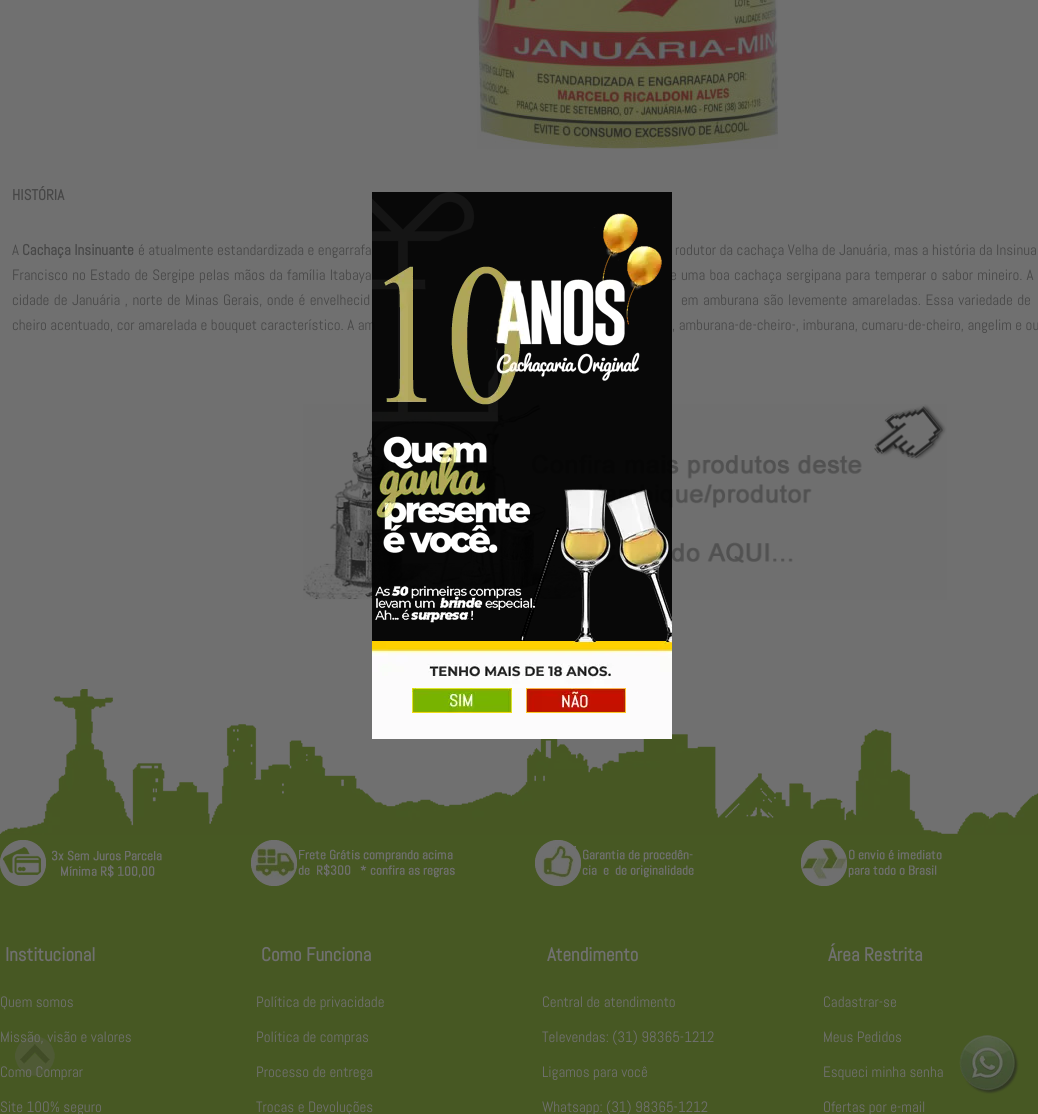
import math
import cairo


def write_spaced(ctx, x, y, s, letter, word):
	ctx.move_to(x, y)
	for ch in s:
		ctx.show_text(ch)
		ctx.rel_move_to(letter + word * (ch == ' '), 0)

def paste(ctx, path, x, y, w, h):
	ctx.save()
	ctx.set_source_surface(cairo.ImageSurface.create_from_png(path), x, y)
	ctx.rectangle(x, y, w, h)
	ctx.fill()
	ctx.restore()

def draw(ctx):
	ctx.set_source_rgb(0.439, 0.439, 0.439)
	ctx.paint()
	paste(ctx, 'media/1.png', 477, 0, 301, 149)
	ctx.select_font_face('Abel', cairo.FONT_SLANT_NORMAL, cairo.FONT_WEIGHT_BOLD)
	ctx.set_font_size(15)
	ctx.set_source_rgb(0.278, 0.278, 0.278)
	ctx.move_to(12, 200)
	ctx.show_text('HISTÓRIA')
	ctx.select_font_face('Abel')
	ctx.move_to(12, 255)
	ctx.show_text('A')
	ctx.select_font_face('Abel', cairo.FONT_SLANT_NORMAL, cairo.FONT_WEIGHT_BOLD)
	ctx.move_to(22, 255)
	ctx.show_text('Cachaça Insinuante')
	ctx.select_font_face('Abel')
	ctx.move_to(138, 255)
	ctx.show_text('é atualmente estandardizada e engarrafa')
	ctx.move_to(675, 255)
	ctx.show_text('rodutor da cachaça Velha de Januária, mas a história da Insinua')
	write_spaced(ctx, 12, 280, 'Francisco no Estado de Sergipe pelas mãos da família Itabaya', 0, 0.75)
	write_spaced(ctx, 670, 280, 'e uma boa cachaça sergipana para temperar o sabor mineiro. A', 0, 0.75)
	write_spaced(ctx, 12, 305, 'cidade de Januária , norte de Minas Gerais, onde é envelhecid', 0, 1)
	write_spaced(ctx, 681, 305, 'em amburana são levemente amareladas. Essa variedade de', 0, 1)
	ctx.move_to(12, 330)
	ctx.show_text('cheiro acentuado, cor amarelada e bouquet característico. A am')
	ctx.move_to(672, 330)
	ctx.show_text(', amburana-de-cheiro-, imburana, cumaru-de-cheiro, angelim e ou')
	paste(ctx, 'media/2.png', 303, 404, 644, 196)
	paste(ctx, 'media/3.png', 0, 689, 1038, 146)
	ctx.set_source_rgb(0.278, 0.345, 0.137)
	ctx.rectangle(0, 835, 1038, 279)
	ctx.fill()
	paste(ctx, 'media/4.png', 0, 840, 162, 46)
	paste(ctx, 'media/5.png', 251, 840, 204, 46)
	paste(ctx, 'media/6.png', 535, 840, 159, 46)
	paste(ctx, 'media/7.png', 801, 840, 141, 46)
	ctx.select_font_face('Abel', cairo.FONT_SLANT_NORMAL, cairo.FONT_WEIGHT_BOLD)
	ctx.set_font_size(19)
	ctx.set_source_rgb(0.439, 0.439, 0.439)
	ctx.move_to(5, 961)
	ctx.show_text('Institucional')
	ctx.select_font_face('Abel')
	ctx.set_font_size(15)
	ctx.move_to(0, 1007)
	ctx.show_text('Quem somos')
	paste(ctx, 'media/8.png', 15, 1036, 40, 40)
	for x, y, s in [
		(0, 1042, 'Missão, visão e valores'),
		(0, 1077, 'Como Comprar'),
		(0, 1112, 'Site 100% seguro'),
	]:
		ctx.move_to(x, y)
		ctx.show_text(s)
	ctx.select_font_face('Abel', cairo.FONT_SLANT_NORMAL, cairo.FONT_WEIGHT_BOLD)
	ctx.set_font_size(19)
	ctx.move_to(261, 961)
	ctx.show_text('Como Funciona')
	ctx.select_font_face('Abel')
	ctx.set_font_size(15)
	for x, y, s in [
		(256, 1007, 'Política de privacidade'),
		(256, 1042, 'Política de compras'),
		(256, 1077, 'Processo de entrega'),
		(256, 1112, 'Trocas e Devoluções'),
	]:
		ctx.move_to(x, y)
		ctx.show_text(s)
	ctx.select_font_face('Abel', cairo.FONT_SLANT_NORMAL, cairo.FONT_WEIGHT_BOLD)
	ctx.set_font_size(19)
	ctx.move_to(547, 961)
	ctx.show_text('Atendimento')
	ctx.select_font_face('Abel')
	ctx.set_font_size(15)
	for x, y, s in [
		(542, 1007, 'Central de atendimento'),
		(542, 1042, 'Televendas: (31) 98365-1212'),
		(542, 1077, 'Ligamos para você'),
		(542, 1112, 'Whatsapp: (31) 98365-1212'),
	]:
		ctx.move_to(x, y)
		ctx.show_text(s)
	ctx.select_font_face('Abel', cairo.FONT_SLANT_NORMAL, cairo.FONT_WEIGHT_BOLD)
	ctx.set_font_size(19)
	ctx.move_to(828, 961)
	ctx.show_text('Área Restrita')
	ctx.select_font_face('Abel')
	ctx.set_font_size(15)
	for x, y, s in [
		(823, 1007, 'Cadastrar-se'),
		(823, 1042, 'Meus Pedidos'),
		(823, 1077, 'Esqueci minha senha'),
		(823, 1112, 'Ofertas por e-mail'),
	]:
		ctx.move_to(x, y)
		ctx.show_text(s)
	paste(ctx, 'media/9.png', 959, 1035, 60, 59)
	paste(ctx, 'media/10.png', 372, 192, 300, 449)
	paste(ctx, 'media/11.png', 372, 192, 300, 547)
	paste(ctx, 'media/12.png', 412, 688, 100, 25)
	paste(ctx, 'media/13.png', 526, 688, 100, 25)


surface = cairo.ImageSurface(cairo.FORMAT_RGB24, 1038, 1114)
ctx = cairo.Context(surface)
options = cairo.FontOptions()
options.set_hint_metrics(cairo.HINT_METRICS_OFF)
options.set_hint_style(cairo.HINT_STYLE_NONE)
ctx.set_font_options(options)
ctx.set_miter_limit(4)
draw(ctx)
surface.write_to_png('image.png')
